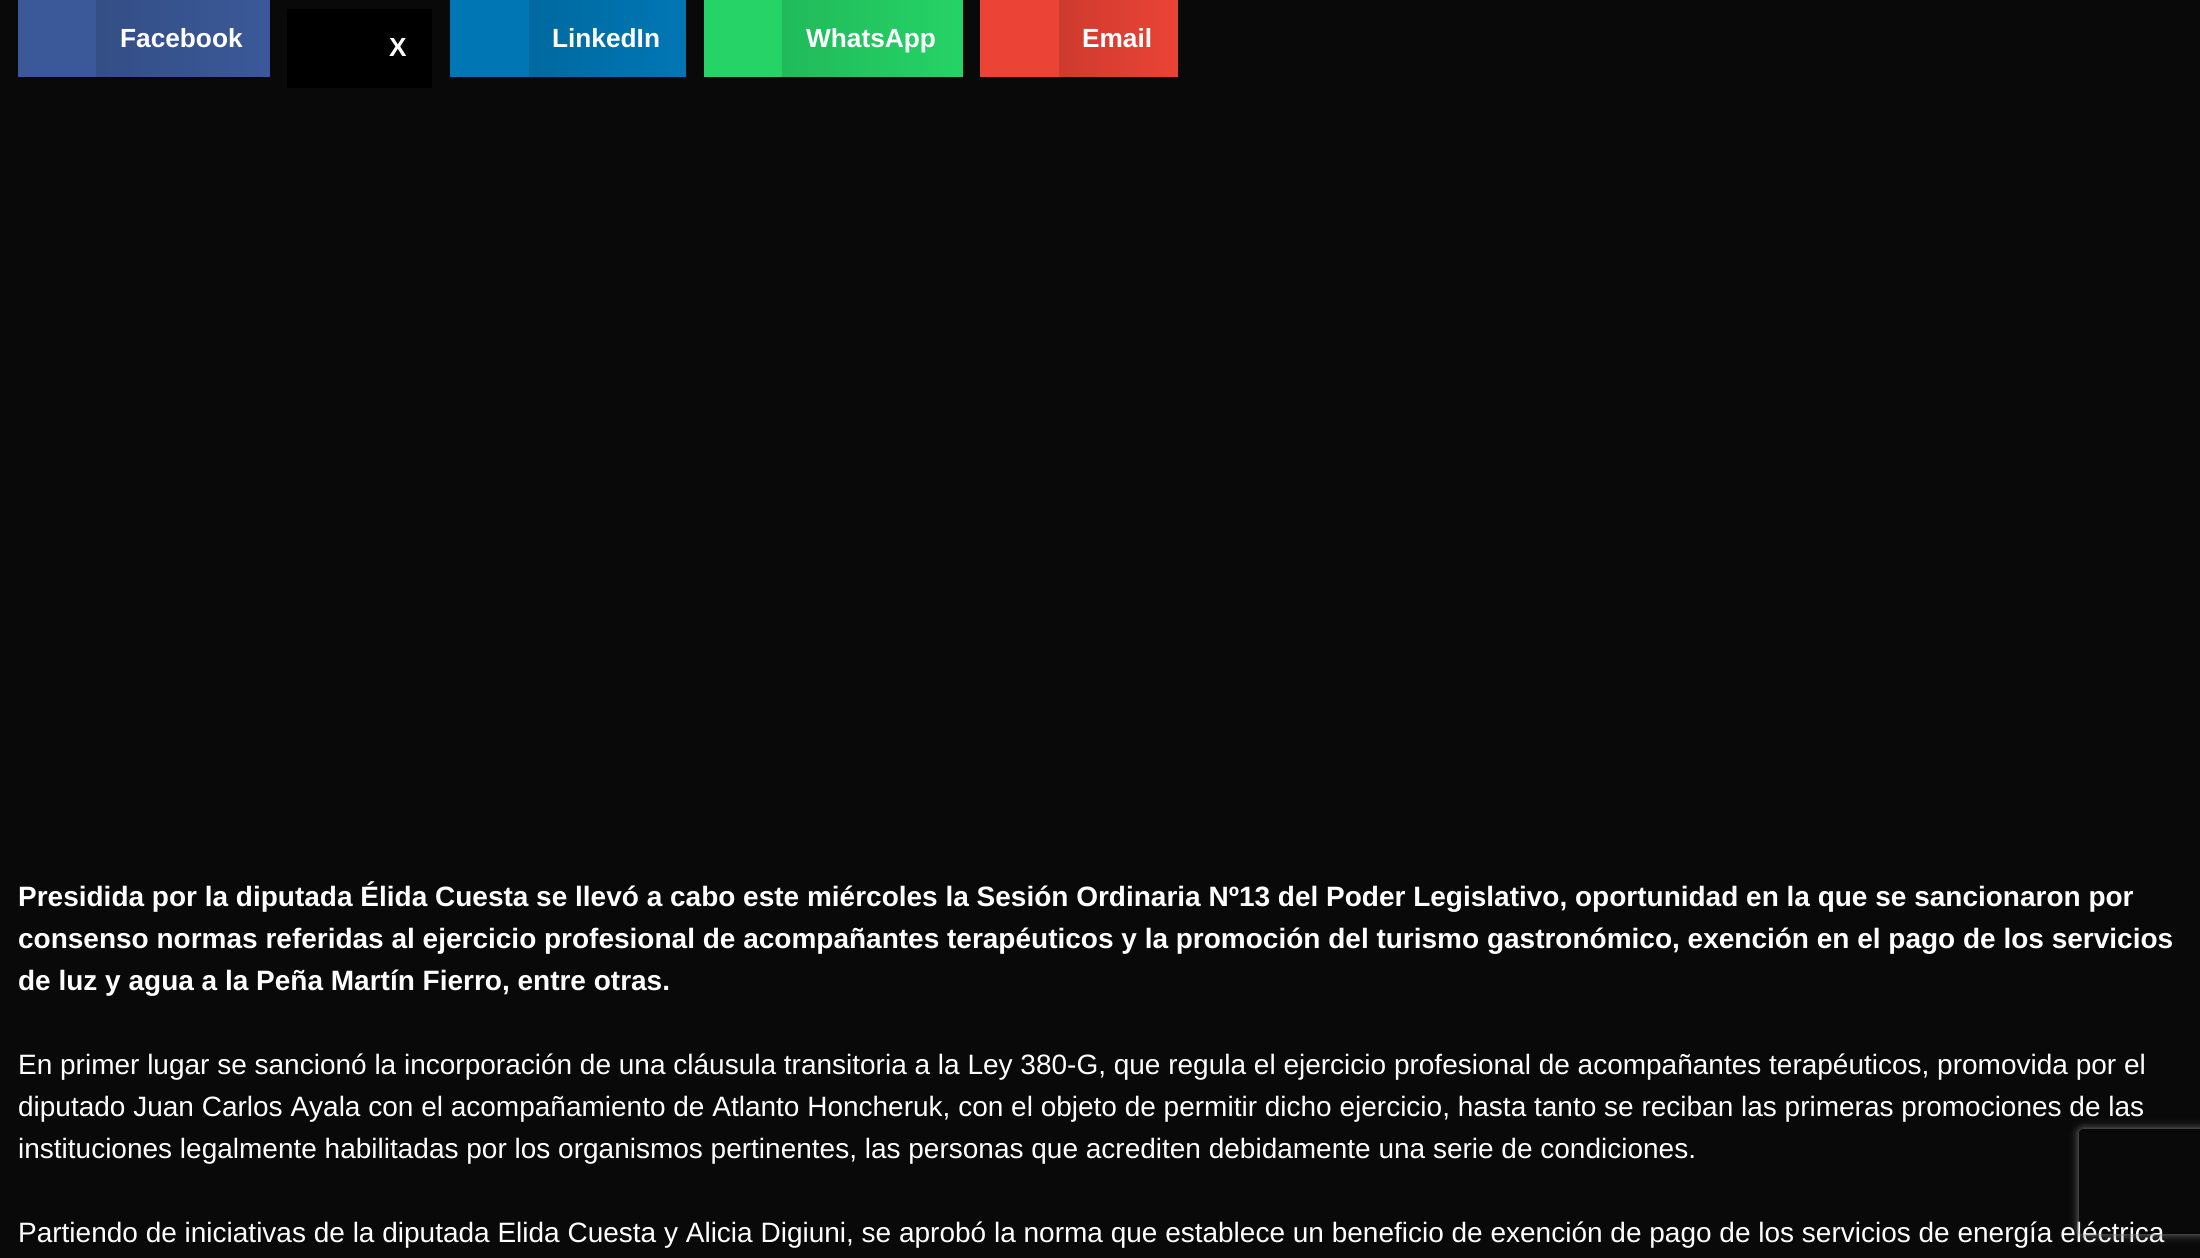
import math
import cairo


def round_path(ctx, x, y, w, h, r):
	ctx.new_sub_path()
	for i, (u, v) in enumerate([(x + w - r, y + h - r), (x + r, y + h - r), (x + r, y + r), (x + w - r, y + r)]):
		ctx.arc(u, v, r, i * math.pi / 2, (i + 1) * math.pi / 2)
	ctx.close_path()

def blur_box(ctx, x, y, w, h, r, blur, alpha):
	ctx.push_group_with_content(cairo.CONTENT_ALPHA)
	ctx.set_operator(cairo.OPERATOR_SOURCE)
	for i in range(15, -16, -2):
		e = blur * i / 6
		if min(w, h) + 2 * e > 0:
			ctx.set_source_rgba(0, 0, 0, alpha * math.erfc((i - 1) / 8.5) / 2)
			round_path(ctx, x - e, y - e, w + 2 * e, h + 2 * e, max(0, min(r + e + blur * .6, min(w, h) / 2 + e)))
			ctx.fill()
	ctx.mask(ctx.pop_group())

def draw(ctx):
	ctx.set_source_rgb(0.039, 0.039, 0.039)
	ctx.paint()
	ctx.set_source_rgb(0.231, 0.349, 0.596)
	ctx.rectangle(18, 0, 78, 77)
	ctx.fill()
	gradient = cairo.LinearGradient(96, 38, 270, 38)
	gradient.add_color_stop_rgba(0, 0.204, 0.306, 0.525, 1)
	gradient.add_color_stop_rgba(1, 0.231, 0.349, 0.596, 1)
	ctx.set_source(gradient)
	ctx.rectangle(96, 0, 174, 77)
	ctx.fill()
	ctx.select_font_face('Liberation Sans', cairo.FONT_SLANT_NORMAL, cairo.FONT_WEIGHT_BOLD)
	ctx.set_font_size(26.25)
	ctx.set_source_rgb(1, 1, 1)
	ctx.move_to(120, 47)
	ctx.show_text('Facebook')
	ctx.set_source_rgb(0, 0, 0)
	ctx.rectangle(287, 9, 145, 79)
	ctx.fill()
	ctx.set_source_rgb(1, 1, 1)
	ctx.move_to(389, 56)
	ctx.show_text('X')
	ctx.set_source_rgb(0, 0.467, 0.71)
	ctx.rectangle(450, 0, 79, 77)
	ctx.fill()
	gradient = cairo.LinearGradient(529, 38, 686, 38)
	gradient.add_color_stop_rgba(0, 0, 0.412, 0.624, 1)
	gradient.add_color_stop_rgba(1, 0, 0.467, 0.71, 1)
	ctx.set_source(gradient)
	ctx.rectangle(529, 0, 157, 77)
	ctx.fill()
	ctx.set_source_rgb(1, 1, 1)
	ctx.move_to(552, 47)
	ctx.show_text('LinkedIn')
	ctx.set_source_rgb(0.145, 0.827, 0.4)
	ctx.rectangle(704, 0, 78, 77)
	ctx.fill()
	gradient = cairo.LinearGradient(782, 38, 963, 38)
	gradient.add_color_stop_rgba(0, 0.129, 0.729, 0.353, 1)
	gradient.add_color_stop_rgba(1, 0.145, 0.827, 0.4, 1)
	ctx.set_source(gradient)
	ctx.rectangle(782, 0, 181, 77)
	ctx.fill()
	ctx.set_source_rgb(1, 1, 1)
	ctx.move_to(806, 47)
	ctx.show_text('WhatsApp')
	ctx.set_source_rgb(0.918, 0.263, 0.208)
	ctx.rectangle(980, 0, 79, 77)
	ctx.fill()
	gradient = cairo.LinearGradient(1059, 38, 1178, 38)
	gradient.add_color_stop_rgba(0, 0.808, 0.231, 0.184, 1)
	gradient.add_color_stop_rgba(1, 0.918, 0.263, 0.208, 1)
	ctx.set_source(gradient)
	ctx.rectangle(1059, 0, 119, 77)
	ctx.fill()
	ctx.set_source_rgb(1, 1, 1)
	ctx.move_to(1082, 47)
	ctx.show_text('Email')
	ctx.set_font_size(28)
	for x, y, s in [
		(18, 906, 'Presidida por la diputada Élida Cuesta se llevó a cabo este miércoles la Sesión Ordinaria Nº13 del Poder Legislativo, oportunidad en la que se sancionaron por'),
		(18, 948, 'consenso normas referidas al ejercicio profesional de acompañantes terapéuticos y la promoción del turismo gastronómico, exención en el pago de los servicios'),
		(18, 990, 'de luz y agua a la Peña Martín Fierro, entre otras.'),
	]:
		ctx.move_to(x, y)
		ctx.show_text(s)
	ctx.select_font_face('Liberation Sans')
	for x, y, s in [
		(18, 1074, 'En primer lugar se sancionó la incorporación de una cláusula transitoria a la Ley 380-G, que regula el ejercicio profesional de acompañantes terapéuticos, promovida por el'),
		(18, 1116, 'diputado Juan Carlos Ayala con el acompañamiento de Atlanto Honcheruk, con el objeto de permitir dicho ejercicio, hasta tanto se reciban las primeras promociones de las'),
		(18, 1158, 'instituciones legalmente habilitadas por los organismos pertinentes, las personas que acrediten debidamente una serie de condiciones.'),
		(18, 1242, 'Partiendo de iniciativas de la diputada Elida Cuesta y Alicia Digiuni, se aprobó la norma que establece un beneficio de exención de pago de los servicios de energía eléctrica'),
	]:
		ctx.move_to(x, y)
		ctx.show_text(s)
	ctx.save()
	ctx.set_fill_rule(cairo.FILL_RULE_EVEN_ODD)
	ctx.new_path()
	ctx.move_to(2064, 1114)
	ctx.line_to(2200, 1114)
	ctx.line_to(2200, 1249)
	ctx.line_to(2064, 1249)
	ctx.close_path()
	ctx.move_to(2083, 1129)
	ctx.line_to(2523, 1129)
	ctx.curve_to(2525, 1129, 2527, 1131, 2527, 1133)
	ctx.line_to(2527, 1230)
	ctx.curve_to(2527, 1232, 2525, 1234, 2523, 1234)
	ctx.line_to(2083, 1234)
	ctx.curve_to(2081, 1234, 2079, 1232, 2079, 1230)
	ctx.line_to(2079, 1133)
	ctx.curve_to(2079, 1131, 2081, 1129, 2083, 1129)
	ctx.close_path()
	ctx.clip()
	ctx.set_source_rgb(0.502, 0.502, 0.502)
	blur_box(ctx, 2079, 1129, 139, 105, 4, 4.5, 1)
	ctx.restore()


surface = cairo.ImageSurface(cairo.FORMAT_RGB24, 2200, 1258)
ctx = cairo.Context(surface)
options = cairo.FontOptions()
options.set_hint_metrics(cairo.HINT_METRICS_OFF)
options.set_hint_style(cairo.HINT_STYLE_NONE)
ctx.set_font_options(options)
ctx.set_miter_limit(4)
draw(ctx)
surface.write_to_png('image.png')
